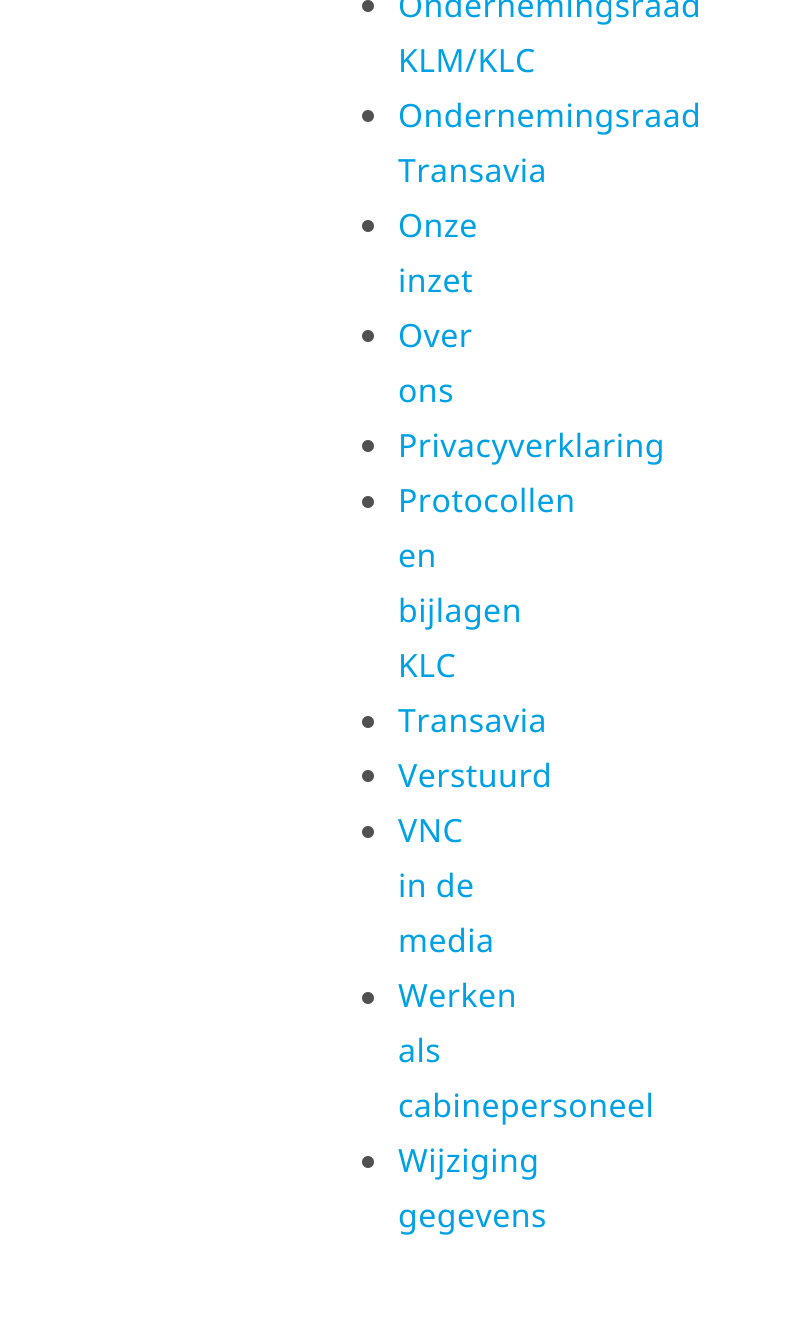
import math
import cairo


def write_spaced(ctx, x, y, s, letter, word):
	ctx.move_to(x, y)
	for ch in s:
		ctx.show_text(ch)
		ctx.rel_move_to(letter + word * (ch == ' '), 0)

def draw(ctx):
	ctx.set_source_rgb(1, 1, 1)
	ctx.paint()
	ctx.set_source_rgb(0.318, 0.318, 0.318)
	ctx.arc(368, 6, 6, 0, 2 * math.pi)
	ctx.fill()
	ctx.select_font_face('Noto Sans')
	ctx.set_font_size(32)
	ctx.set_source_rgb(0, 0.631, 0.894)
	write_spaced(ctx, 398, 17, 'Ondernemingsraad', 0.5, 0)
	write_spaced(ctx, 398, 72, 'KLM/KLC', 0.5, 0)
	ctx.set_source_rgb(0.318, 0.318, 0.318)
	ctx.new_path()
	ctx.arc(368, 116, 6, 0, 2 * math.pi)
	ctx.fill()
	ctx.set_source_rgb(0, 0.631, 0.894)
	write_spaced(ctx, 398, 127, 'Ondernemingsraad', 0.5, 0)
	write_spaced(ctx, 398, 182, 'Transavia', 0.5, 0)
	ctx.set_source_rgb(0.318, 0.318, 0.318)
	ctx.new_path()
	ctx.arc(368, 226, 6, 0, 2 * math.pi)
	ctx.fill()
	ctx.set_source_rgb(0, 0.631, 0.894)
	write_spaced(ctx, 398, 237, 'Onze', 0.5, 0)
	write_spaced(ctx, 398, 292, 'inzet', 0.5, 0)
	ctx.set_source_rgb(0.318, 0.318, 0.318)
	ctx.new_path()
	ctx.arc(368, 336, 6, 0, 2 * math.pi)
	ctx.fill()
	ctx.set_source_rgb(0, 0.631, 0.894)
	write_spaced(ctx, 398, 347, 'Over', 0.5, 0)
	write_spaced(ctx, 398, 402, 'ons', 0.5, 0)
	ctx.set_source_rgb(0.318, 0.318, 0.318)
	ctx.new_path()
	ctx.arc(368, 446, 6, 0, 2 * math.pi)
	ctx.fill()
	ctx.set_source_rgb(0, 0.631, 0.894)
	write_spaced(ctx, 398, 457, 'Privacyverklaring', 0.5, 0)
	ctx.set_source_rgb(0.318, 0.318, 0.318)
	ctx.new_path()
	ctx.arc(368, 502, 6, 0, 2 * math.pi)
	ctx.fill()
	ctx.set_source_rgb(0, 0.631, 0.894)
	for x, y, s in [
		(398, 512, 'Protocollen'),
		(398, 567, 'en'),
		(398, 622, 'bijlagen'),
		(398, 677, 'KLC'),
	]:
		write_spaced(ctx, x, y, s, 0.5, 0)
	ctx.set_source_rgb(0.318, 0.318, 0.318)
	ctx.new_path()
	ctx.arc(368, 722, 6, 0, 2 * math.pi)
	ctx.fill()
	ctx.set_source_rgb(0, 0.631, 0.894)
	write_spaced(ctx, 398, 732, 'Transavia', 0.5, 0)
	ctx.set_source_rgb(0.318, 0.318, 0.318)
	ctx.new_path()
	ctx.arc(368, 776, 6, 0, 2 * math.pi)
	ctx.fill()
	ctx.set_source_rgb(0, 0.631, 0.894)
	write_spaced(ctx, 398, 787, 'Verstuurd', 0.5, 0)
	ctx.set_source_rgb(0.318, 0.318, 0.318)
	ctx.new_path()
	ctx.arc(368, 832, 6, 0, 2 * math.pi)
	ctx.fill()
	ctx.set_source_rgb(0, 0.631, 0.894)
	for x, y, s in [
		(398, 842, 'VNC'),
		(398, 897, 'in de'),
		(398, 952, 'media'),
	]:
		write_spaced(ctx, x, y, s, 0.5, 0)
	ctx.set_source_rgb(0.318, 0.318, 0.318)
	ctx.new_path()
	ctx.arc(368, 998, 6, 0, 2 * math.pi)
	ctx.fill()
	ctx.set_source_rgb(0, 0.631, 0.894)
	for x, y, s in [
		(398, 1007, 'Werken'),
		(398, 1062, 'als'),
		(398, 1117, 'cabinepersoneel'),
	]:
		write_spaced(ctx, x, y, s, 0.5, 0)
	ctx.set_source_rgb(0.318, 0.318, 0.318)
	ctx.new_path()
	ctx.arc(368, 1162, 6, 0, 2 * math.pi)
	ctx.fill()
	ctx.set_source_rgb(0, 0.631, 0.894)
	write_spaced(ctx, 398, 1172, 'Wijziging', 0.5, 0)
	write_spaced(ctx, 398, 1227, 'gegevens', 0.5, 0)


surface = cairo.ImageSurface(cairo.FORMAT_RGB24, 812, 1340)
ctx = cairo.Context(surface)
options = cairo.FontOptions()
options.set_hint_metrics(cairo.HINT_METRICS_OFF)
options.set_hint_style(cairo.HINT_STYLE_NONE)
ctx.set_font_options(options)
ctx.set_miter_limit(4)
draw(ctx)
surface.write_to_png('image.png')
